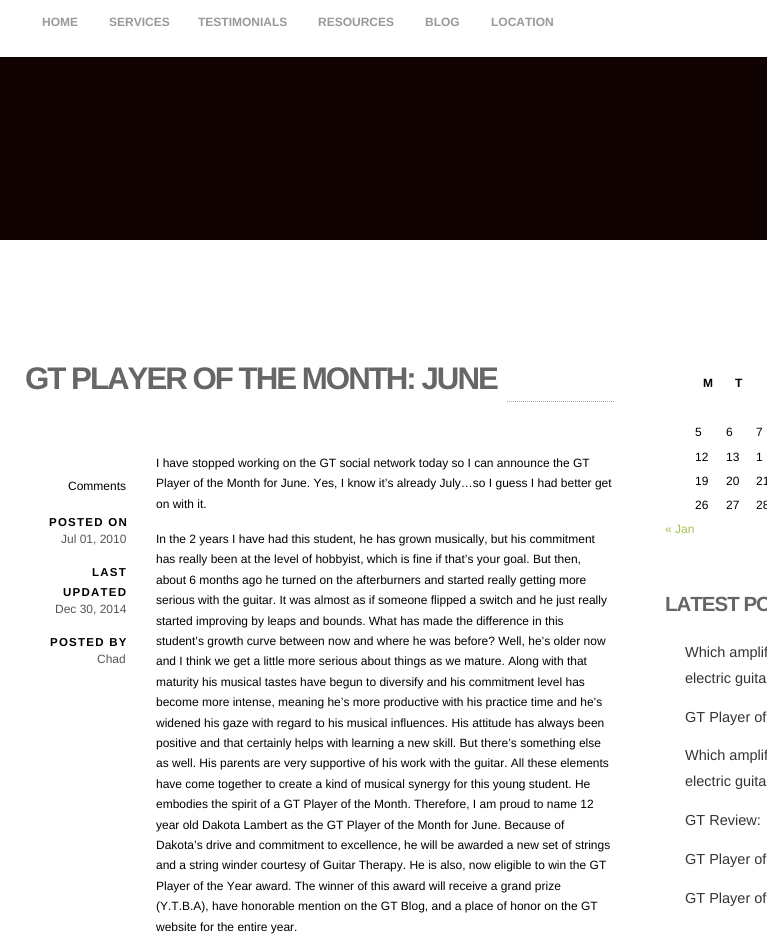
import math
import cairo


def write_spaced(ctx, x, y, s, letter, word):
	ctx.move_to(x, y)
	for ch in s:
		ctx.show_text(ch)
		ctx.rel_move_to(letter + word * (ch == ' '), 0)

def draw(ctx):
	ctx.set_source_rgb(1, 1, 1)
	ctx.paint()
	ctx.select_font_face('Liberation Sans', cairo.FONT_SLANT_NORMAL, cairo.FONT_WEIGHT_BOLD)
	ctx.set_font_size(12)
	ctx.set_source_rgb(0.6, 0.6, 0.6)
	for x, y, s in [
		(42, 26, 'HOME'),
		(109, 26, 'SERVICES'),
		(198, 26, 'TESTIMONIALS'),
		(318, 26, 'RESOURCES'),
		(425, 26, 'BLOG'),
		(491, 26, 'LOCATION'),
	]:
		ctx.move_to(x, y)
		ctx.show_text(s)
	ctx.set_source_rgb(0.067, 0.012, 0.008)
	ctx.rectangle(0, 57, 767, 183)
	ctx.fill()
	ctx.new_path()
	ctx.move_to(25, 401.5)
	ctx.line_to(615, 401.5)
	ctx.set_source_rgb(0.667, 0.667, 0.667)
	ctx.set_line_width(1)
	ctx.set_dash([1, 1])
	ctx.stroke()
	ctx.set_source_rgb(1, 1, 1)
	ctx.rectangle(25, 401, 481, 1)
	ctx.fill()
	ctx.set_font_size(31.25)
	ctx.set_source_rgb(0.4, 0.4, 0.4)
	write_spaced(ctx, 25, 389, 'GT PLAYER OF THE MONTH: JUNE', -2, 0)
	ctx.select_font_face('Liberation Sans')
	ctx.set_font_size(12)
	ctx.set_source_rgb(0, 0, 0)
	ctx.move_to(68, 490)
	ctx.show_text('Comments')
	ctx.select_font_face('Liberation Sans', cairo.FONT_SLANT_NORMAL, cairo.FONT_WEIGHT_BOLD)
	ctx.set_font_size(11.5)
	write_spaced(ctx, 49, 526, 'POSTED ON', 1.25, 0)
	ctx.select_font_face('Liberation Sans')
	ctx.set_font_size(12)
	ctx.set_source_rgb(0.333, 0.333, 0.333)
	ctx.move_to(61, 543)
	ctx.show_text('Jul 01, 2010')
	ctx.select_font_face('Liberation Sans', cairo.FONT_SLANT_NORMAL, cairo.FONT_WEIGHT_BOLD)
	ctx.set_font_size(11.5)
	ctx.set_source_rgb(0, 0, 0)
	write_spaced(ctx, 92, 576, 'LAST', 1.25, 0)
	write_spaced(ctx, 63, 596, 'UPDATED', 1.25, 0)
	ctx.select_font_face('Liberation Sans')
	ctx.set_font_size(12)
	ctx.set_source_rgb(0.333, 0.333, 0.333)
	ctx.move_to(55, 613)
	ctx.show_text('Dec 30, 2014')
	ctx.select_font_face('Liberation Sans', cairo.FONT_SLANT_NORMAL, cairo.FONT_WEIGHT_BOLD)
	ctx.set_font_size(11.5)
	ctx.set_source_rgb(0, 0, 0)
	write_spaced(ctx, 50, 646, 'POSTED BY', 1.25, 0)
	ctx.select_font_face('Liberation Sans')
	ctx.set_font_size(12)
	ctx.set_source_rgb(0.333, 0.333, 0.333)
	ctx.move_to(97, 663)
	ctx.show_text('Chad')
	ctx.set_source_rgb(0, 0, 0)
	for x, y, s in [
		(156, 467, 'I have stopped working on the GT social network today so I can announce the GT'),
		(156, 487, 'Player of the Month for June. Yes, I know it’s already July…so I guess I had better get'),
		(156, 508, 'on with it.'),
		(156, 543, 'In the 2 years I have had this student, he has grown musically, but his commitment'),
		(156, 563, 'has really been at the level of hobbyist, which is fine if that’s your goal. But then,'),
		(156, 584, 'about 6 months ago he turned on the afterburners and started really getting more'),
		(156, 604, 'serious with the guitar. It was almost as if someone flipped a switch and he just really'),
		(156, 625, 'started improving by leaps and bounds. What has made the difference in this'),
		(156, 645, 'student’s growth curve between now and where he was before? Well, he’s older now'),
		(156, 665, 'and I think we get a little more serious about things as we mature. Along with that'),
		(156, 686, 'maturity his musical tastes have begun to diversify and his commitment level has'),
		(156, 706, 'become more intense, meaning he’s more productive with his practice time and he’s'),
		(156, 727, 'widened his gaze with regard to his musical influences. His attitude has always been'),
		(156, 747, 'positive and that certainly helps with learning a new skill. But there’s something else'),
		(156, 767, 'as well. His parents are very supportive of his work with the guitar. All these elements'),
		(156, 788, 'have come together to create a kind of musical synergy for this young student. He'),
		(156, 808, 'embodies the spirit of a GT Player of the Month. Therefore, I am proud to name 12'),
		(156, 829, 'year old Dakota Lambert as the GT Player of the Month for June. Because of'),
		(156, 849, 'Dakota’s drive and commitment to excellence, he will be awarded a new set of strings'),
		(156, 869, 'and a string winder courtesy of Guitar Therapy. He is also, now eligible to win the GT'),
		(156, 890, 'Player of the Year award. The winner of this award will receive a grand prize'),
		(156, 910, '(Y.T.B.A), have honorable mention on the GT Blog, and a place of honor on the GT'),
		(156, 931, 'website for the entire year.'),
	]:
		ctx.move_to(x, y)
		ctx.show_text(s)
	ctx.select_font_face('Liberation Sans', cairo.FONT_SLANT_NORMAL, cairo.FONT_WEIGHT_BOLD)
	ctx.move_to(703, 387)
	ctx.show_text('M')
	ctx.move_to(735, 387)
	ctx.show_text('T')
	ctx.select_font_face('Liberation Sans')
	for x, y, s in [
		(695, 436, '5'),
		(726, 436, '6'),
		(756, 436, '7'),
		(695, 461, '12'),
		(726, 461, '13'),
		(756, 461, '1'),
		(695, 485, '19'),
		(726, 485, '20'),
		(756, 485, '21'),
		(695, 509, '26'),
		(726, 509, '27'),
		(756, 509, '28'),
	]:
		ctx.move_to(x, y)
		ctx.show_text(s)
	ctx.set_source_rgb(0.627, 0.765, 0.294)
	ctx.move_to(665, 533)
	ctx.show_text('« Jan')
	ctx.select_font_face('Liberation Sans', cairo.FONT_SLANT_NORMAL, cairo.FONT_WEIGHT_BOLD)
	ctx.set_font_size(20.5)
	ctx.set_source_rgb(0.4, 0.4, 0.4)
	write_spaced(ctx, 665, 611, 'LATEST PO', -1, 0)
	ctx.select_font_face('Liberation Sans')
	ctx.set_font_size(14.5)
	ctx.set_source_rgb(0.2, 0.2, 0.2)
	for x, y, s in [
		(685, 657, 'Which amplif'),
		(685, 683, 'electric guita'),
		(685, 722, 'GT Player of'),
		(685, 760, 'Which amplif'),
		(685, 786, 'electric guita'),
		(685, 825, 'GT Review:'),
		(685, 864, 'GT Player of'),
		(685, 903, 'GT Player of'),
	]:
		ctx.move_to(x, y)
		ctx.show_text(s)


surface = cairo.ImageSurface(cairo.FORMAT_RGB24, 767, 936)
ctx = cairo.Context(surface)
options = cairo.FontOptions()
options.set_hint_metrics(cairo.HINT_METRICS_OFF)
options.set_hint_style(cairo.HINT_STYLE_NONE)
ctx.set_font_options(options)
ctx.set_miter_limit(4)
draw(ctx)
surface.write_to_png('image.png')
